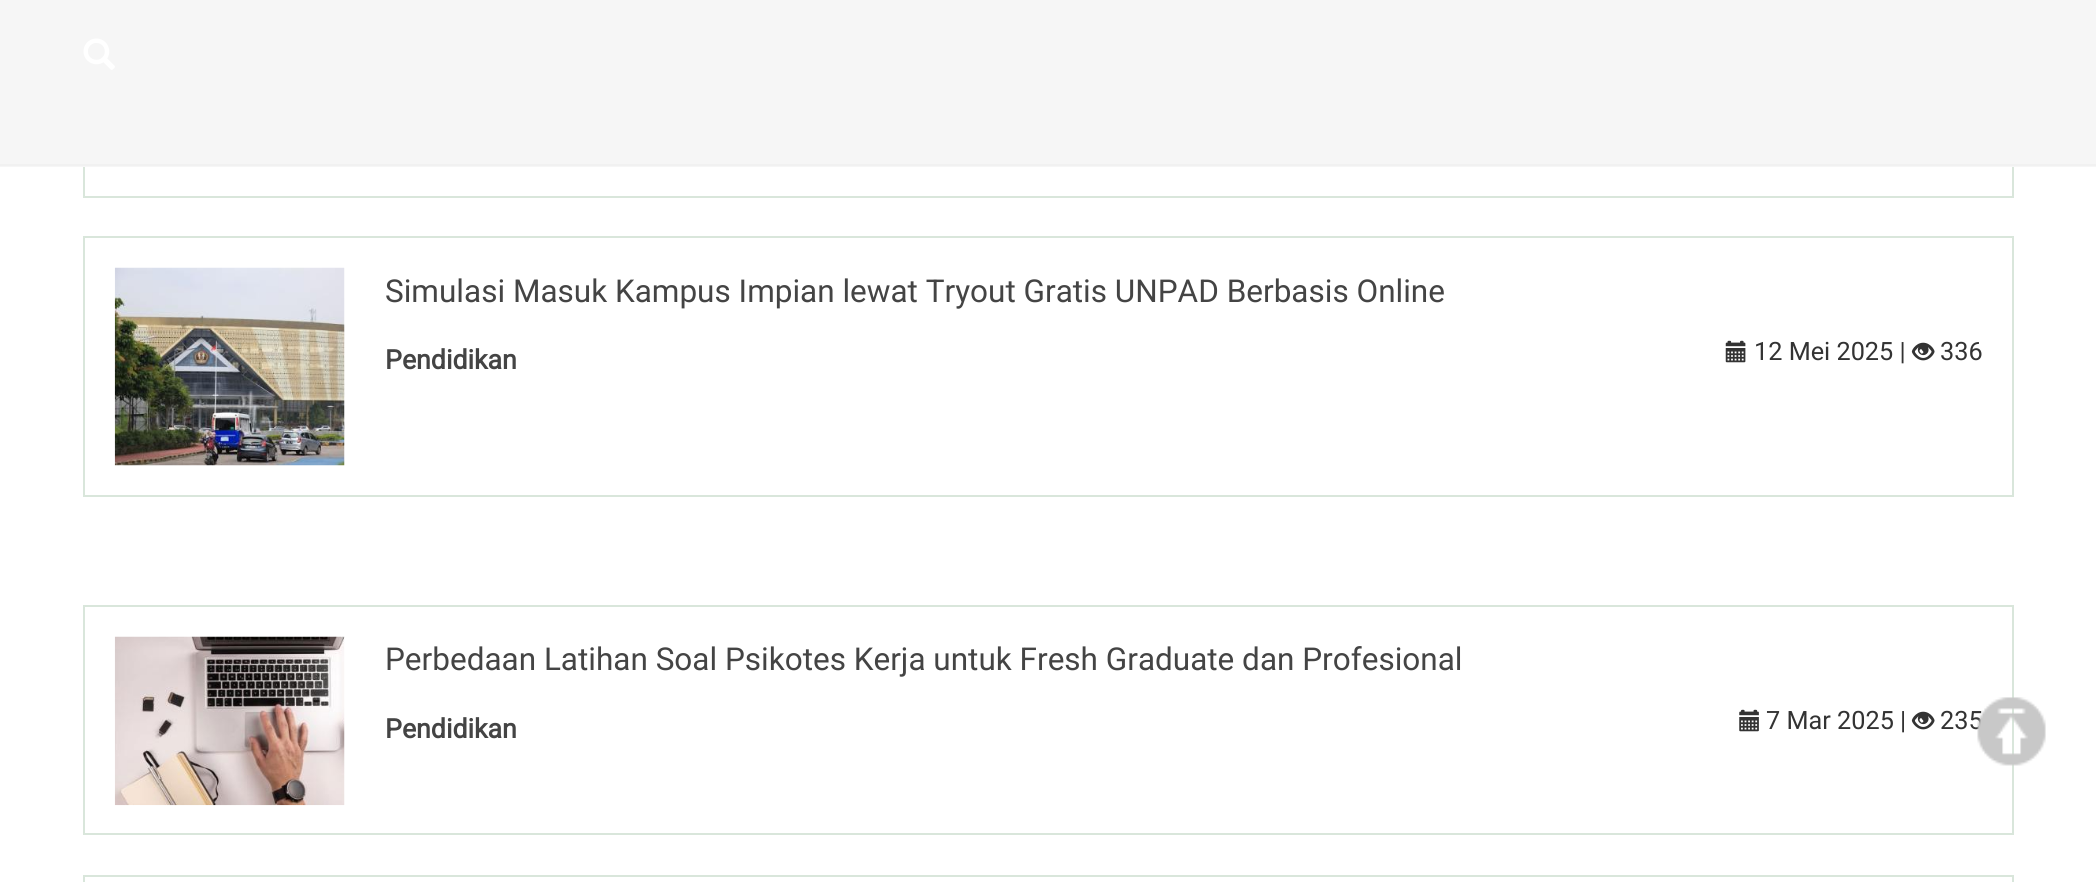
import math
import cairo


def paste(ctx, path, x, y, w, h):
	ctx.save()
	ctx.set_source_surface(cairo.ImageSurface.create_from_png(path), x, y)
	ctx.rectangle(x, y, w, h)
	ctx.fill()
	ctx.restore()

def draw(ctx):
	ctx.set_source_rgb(1, 1, 1)
	ctx.paint()
	ctx.rectangle(84, -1, 1929, 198)
	ctx.set_source_rgb(0.851, 0.902, 0.859)
	ctx.stroke()
	ctx.set_source_rgb(0.961, 0.961, 0.961)
	ctx.rectangle(0, 0, 2096, 167)
	ctx.fill()
	ctx.set_source_rgb(0.945, 0.945, 0.945)
	ctx.rectangle(0, 164, 2096, 2)
	ctx.fill()
	paste(ctx, 'media/1.png', 83, 38, 32, 32)
	ctx.rectangle(84, 237, 1929, 259)
	ctx.set_source_rgb(0.851, 0.902, 0.859)
	ctx.stroke()
	paste(ctx, 'media/2.png', 114, 267, 231, 199)
	ctx.select_font_face('Roboto')
	ctx.set_font_size(31.5)
	ctx.set_source_rgb(0.267, 0.267, 0.267)
	ctx.move_to(385, 302)
	ctx.show_text('Simulasi Masuk Kampus Impian lewat Tryout Gratis UNPAD Berbasis Online')
	ctx.select_font_face('Roboto', cairo.FONT_SLANT_NORMAL, cairo.FONT_WEIGHT_BOLD)
	ctx.set_font_size(26.75)
	ctx.move_to(385, 369)
	ctx.show_text('Pendidikan')
	paste(ctx, 'media/3.png', 1725, 340, 21, 23)
	ctx.select_font_face('Roboto')
	ctx.set_font_size(25.25)
	ctx.set_source_rgb(0.2, 0.2, 0.2)
	ctx.move_to(1754, 360)
	ctx.show_text('12 Mei 2025 |')
	paste(ctx, 'media/4.png', 1911, 342, 24, 19)
	ctx.move_to(1940, 360)
	ctx.show_text('336')
	ctx.rectangle(84, 606, 1929, 228)
	ctx.set_source_rgb(0.851, 0.902, 0.859)
	ctx.stroke()
	paste(ctx, 'media/5.png', 114, 636, 231, 170)
	ctx.set_font_size(31.5)
	ctx.set_source_rgb(0.267, 0.267, 0.267)
	ctx.move_to(385, 670)
	ctx.show_text('Perbedaan Latihan Soal Psikotes Kerja untuk Fresh Graduate dan Profesional')
	ctx.select_font_face('Roboto', cairo.FONT_SLANT_NORMAL, cairo.FONT_WEIGHT_BOLD)
	ctx.set_font_size(26.75)
	ctx.move_to(385, 738)
	ctx.show_text('Pendidikan')
	paste(ctx, 'media/6.png', 1739, 709, 20, 23)
	ctx.select_font_face('Roboto')
	ctx.set_font_size(25.25)
	ctx.set_source_rgb(0.2, 0.2, 0.2)
	ctx.move_to(1766, 729)
	ctx.show_text('7 Mar 2025 |')
	paste(ctx, 'media/4.png', 1911, 711, 24, 19)
	ctx.move_to(1940, 729)
	ctx.show_text('235')
	ctx.rectangle(84, 876, 1929, 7)
	ctx.set_source_rgb(0.851, 0.902, 0.859)
	ctx.stroke()
	paste(ctx, 'media/7.png', 1977, 697, 69, 69)


surface = cairo.ImageSurface(cairo.FORMAT_RGB24, 2096, 882)
ctx = cairo.Context(surface)
options = cairo.FontOptions()
options.set_hint_metrics(cairo.HINT_METRICS_OFF)
options.set_hint_style(cairo.HINT_STYLE_NONE)
ctx.set_font_options(options)
ctx.set_miter_limit(4)
draw(ctx)
surface.write_to_png('image.png')
